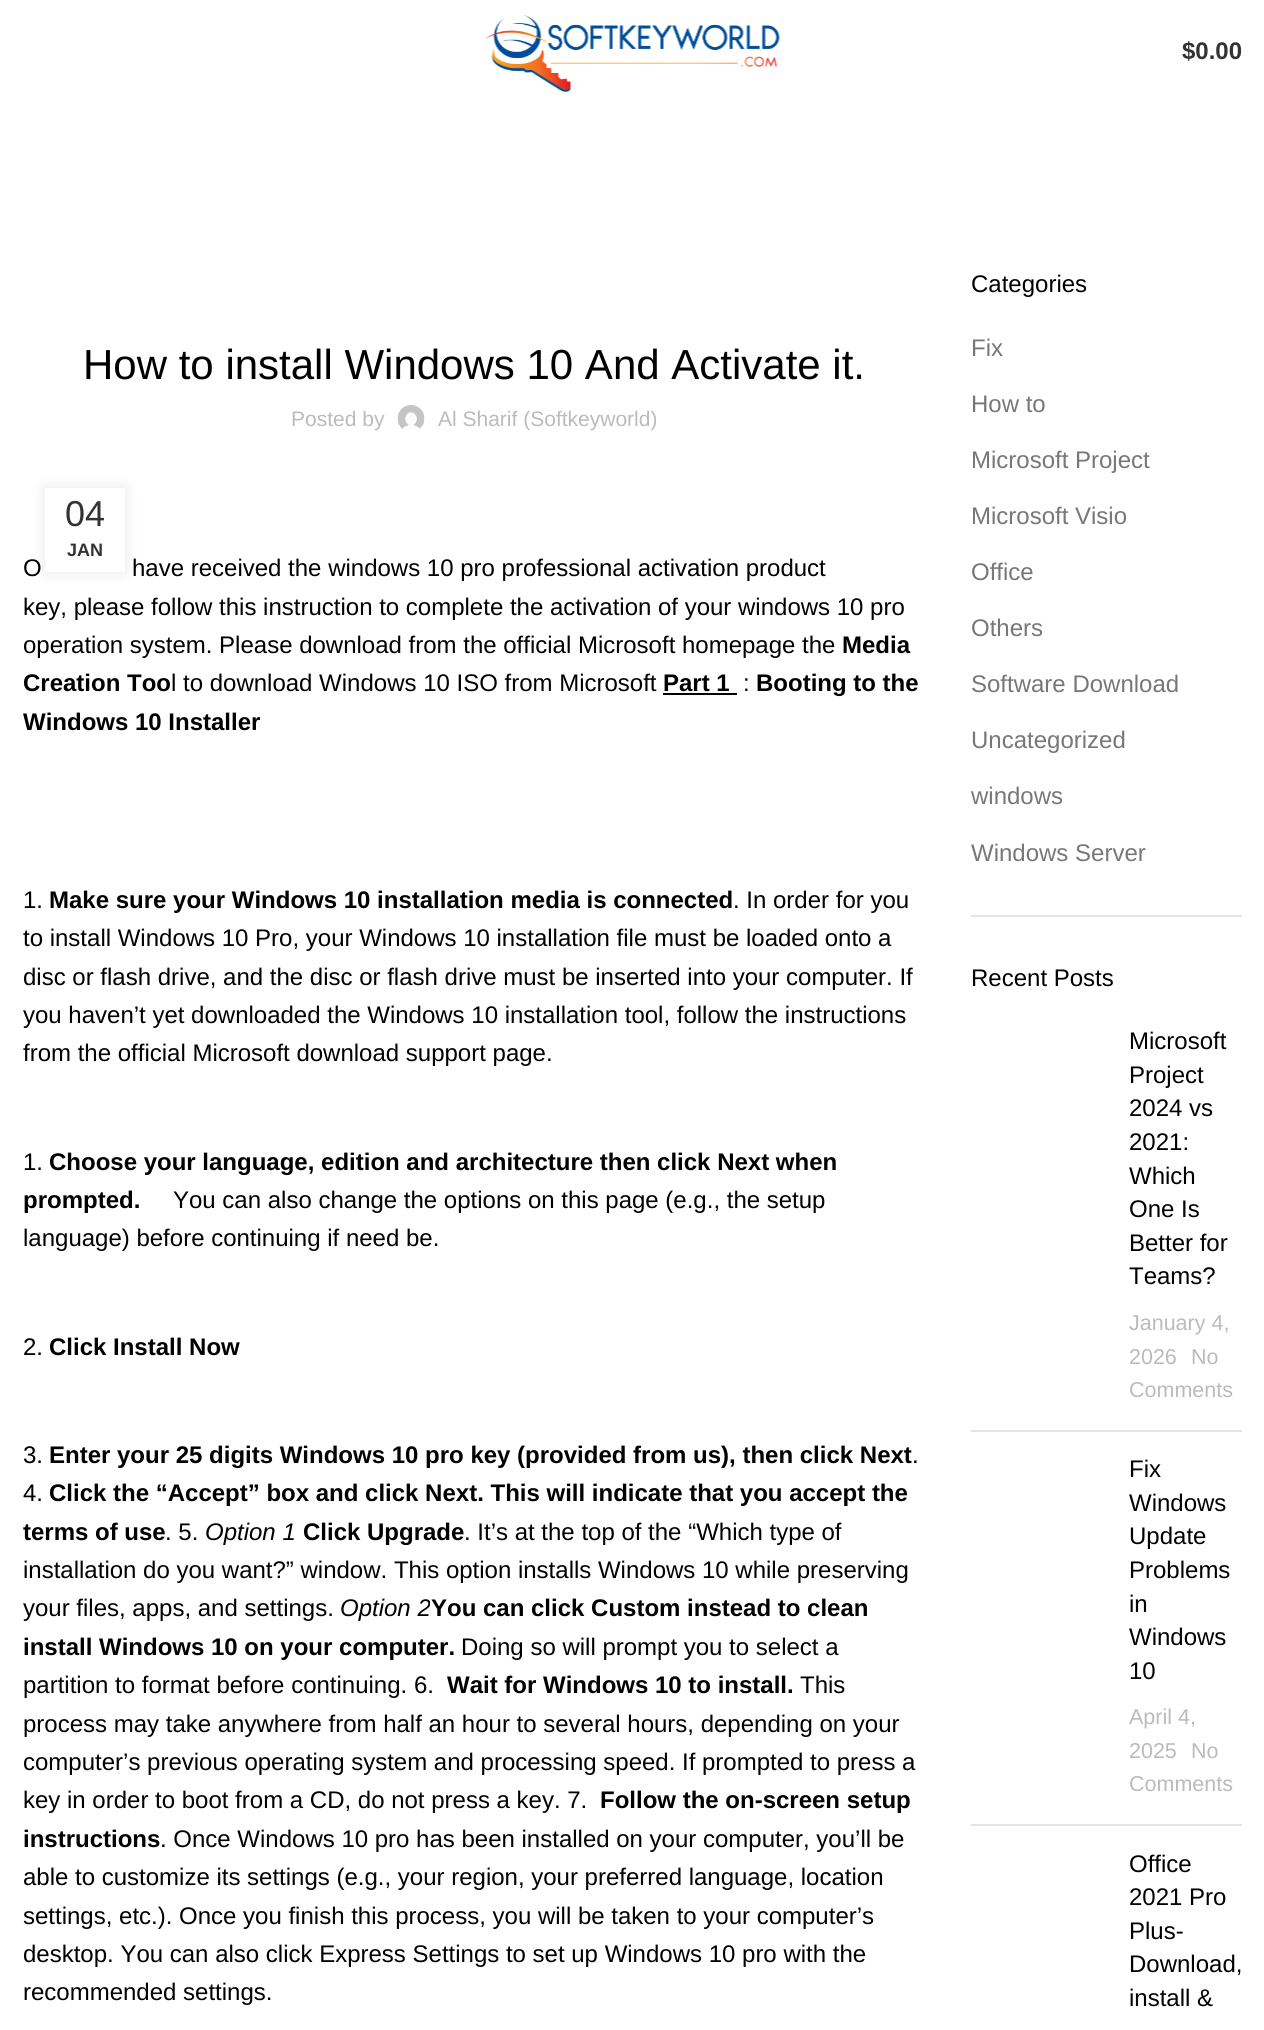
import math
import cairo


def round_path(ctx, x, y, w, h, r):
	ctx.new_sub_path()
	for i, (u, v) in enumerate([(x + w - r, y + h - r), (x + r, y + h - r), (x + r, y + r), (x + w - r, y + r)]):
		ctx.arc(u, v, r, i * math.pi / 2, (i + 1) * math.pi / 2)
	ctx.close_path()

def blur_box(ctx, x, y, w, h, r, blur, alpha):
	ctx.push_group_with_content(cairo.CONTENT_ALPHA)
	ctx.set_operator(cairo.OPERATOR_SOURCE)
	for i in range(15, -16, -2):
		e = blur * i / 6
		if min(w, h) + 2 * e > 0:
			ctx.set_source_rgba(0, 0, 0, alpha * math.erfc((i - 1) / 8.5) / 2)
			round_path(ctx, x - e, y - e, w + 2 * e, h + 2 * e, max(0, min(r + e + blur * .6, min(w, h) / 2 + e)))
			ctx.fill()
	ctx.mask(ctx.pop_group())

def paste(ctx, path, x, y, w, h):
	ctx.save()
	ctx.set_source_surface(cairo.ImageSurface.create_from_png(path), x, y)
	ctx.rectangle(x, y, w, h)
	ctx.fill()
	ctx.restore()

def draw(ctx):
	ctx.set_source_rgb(1, 1, 1)
	ctx.paint()
	paste(ctx, 'media/1.png', 485, 15, 295, 77)
	ctx.select_font_face('Liberation Sans', cairo.FONT_SLANT_NORMAL, cairo.FONT_WEIGHT_BOLD)
	ctx.set_font_size(24)
	ctx.set_source_rgb(0.2, 0.2, 0.2)
	ctx.move_to(1182, 59)
	ctx.show_text('$0.00')
	ctx.select_font_face('Liberation Sans')
	ctx.set_font_size(42)
	ctx.set_source_rgb(0, 0, 0)
	ctx.move_to(83, 379)
	ctx.show_text('How to install Windows 10 And Activate it.')
	ctx.set_font_size(21)
	ctx.set_source_rgb(0.733, 0.733, 0.733)
	ctx.move_to(291, 426)
	ctx.show_text('Posted by')
	paste(ctx, 'media/2.png', 397, 405, 28, 25)
	ctx.move_to(438, 426)
	ctx.show_text('Al Sharif (Softkeyworld)')
	ctx.set_source_rgb(0, 0, 0)
	blur_box(ctx, 45, 488, 80, 84, 0, 7, 0.1)
	ctx.set_source_rgb(1, 1, 1)
	ctx.rectangle(45, 488, 80, 84)
	ctx.fill()
	ctx.set_font_size(36)
	ctx.set_source_rgb(0.2, 0.2, 0.2)
	ctx.move_to(65, 526)
	ctx.show_text('04')
	ctx.select_font_face('Liberation Sans', cairo.FONT_SLANT_NORMAL, cairo.FONT_WEIGHT_BOLD)
	ctx.set_font_size(18)
	ctx.move_to(67, 556)
	ctx.show_text('JAN')
	ctx.select_font_face('Liberation Sans')
	ctx.set_font_size(24)
	ctx.set_source_rgb(0, 0, 0)
	for x, y, s in [
		(23, 576, 'O'),
		(132, 576, 'have received the windows 10 pro professional activation product'),
		(23, 615, 'key, please follow this instruction to complete the activation of your windows 10 pro'),
		(23, 653, 'operation system. Please download from the official Microsoft homepage the'),
	]:
		ctx.move_to(x, y)
		ctx.show_text(s)
	ctx.select_font_face('Liberation Sans', cairo.FONT_SLANT_NORMAL, cairo.FONT_WEIGHT_BOLD)
	ctx.move_to(842, 653)
	ctx.show_text('Media')
	ctx.move_to(23, 691)
	ctx.show_text('Creation Too')
	ctx.select_font_face('Liberation Sans')
	ctx.move_to(171, 691)
	ctx.show_text('l to download Windows 10 ISO from Microsoft')
	ctx.select_font_face('Liberation Sans', cairo.FONT_SLANT_NORMAL, cairo.FONT_WEIGHT_BOLD)
	ctx.move_to(663, 691)
	ctx.show_text('Part 1')
	ctx.rectangle(663, 693, 74, 2)
	ctx.fill()
	ctx.select_font_face('Liberation Sans')
	ctx.move_to(743, 691)
	ctx.show_text(':')
	ctx.select_font_face('Liberation Sans', cairo.FONT_SLANT_NORMAL, cairo.FONT_WEIGHT_BOLD)
	ctx.move_to(756, 691)
	ctx.show_text('Booting to the')
	ctx.move_to(23, 730)
	ctx.show_text('Windows 10 Installer')
	ctx.select_font_face('Liberation Sans')
	ctx.move_to(23, 908)
	ctx.show_text('1.')
	ctx.select_font_face('Liberation Sans', cairo.FONT_SLANT_NORMAL, cairo.FONT_WEIGHT_BOLD)
	ctx.move_to(49, 908)
	ctx.show_text('Make sure your Windows 10 installation media is connected')
	ctx.select_font_face('Liberation Sans')
	for x, y, s in [
		(733, 908, '. In order for you'),
		(23, 946, 'to install Windows 10 Pro, your Windows 10 installation file must be loaded onto a'),
		(23, 985, 'disc or flash drive, and the disc or flash drive must be inserted into your computer. If'),
		(23, 1023, 'you haven’t yet downloaded the Windows 10 installation tool, follow the instructions'),
		(23, 1061, 'from the official Microsoft download support page.'),
		(23, 1170, '1.'),
	]:
		ctx.move_to(x, y)
		ctx.show_text(s)
	ctx.select_font_face('Liberation Sans', cairo.FONT_SLANT_NORMAL, cairo.FONT_WEIGHT_BOLD)
	ctx.move_to(49, 1170)
	ctx.show_text('Choose your language, edition and architecture then click Next when')
	ctx.move_to(23, 1208)
	ctx.show_text('prompted.')
	ctx.select_font_face('Liberation Sans')
	for x, y, s in [
		(173, 1208, 'You can also change the options on this page (e.g., the setup'),
		(23, 1246, 'language) before continuing if need be.'),
		(23, 1355, '2.'),
	]:
		ctx.move_to(x, y)
		ctx.show_text(s)
	ctx.select_font_face('Liberation Sans', cairo.FONT_SLANT_NORMAL, cairo.FONT_WEIGHT_BOLD)
	ctx.move_to(49, 1355)
	ctx.show_text('Click Install Now')
	ctx.select_font_face('Liberation Sans')
	ctx.move_to(23, 1463)
	ctx.show_text('3.')
	ctx.select_font_face('Liberation Sans', cairo.FONT_SLANT_NORMAL, cairo.FONT_WEIGHT_BOLD)
	ctx.move_to(49, 1463)
	ctx.show_text('Enter your 25 digits Windows 10 pro key (provided from us), then click Next')
	ctx.select_font_face('Liberation Sans')
	ctx.move_to(912, 1463)
	ctx.show_text('.')
	ctx.move_to(23, 1501)
	ctx.show_text('4.')
	ctx.select_font_face('Liberation Sans', cairo.FONT_SLANT_NORMAL, cairo.FONT_WEIGHT_BOLD)
	ctx.move_to(49, 1501)
	ctx.show_text('Click the “Accept” box and click Next. This will indicate that you accept the')
	ctx.move_to(23, 1540)
	ctx.show_text('terms of use')
	ctx.select_font_face('Liberation Sans')
	ctx.move_to(165, 1540)
	ctx.show_text('. 5.')
	ctx.select_font_face('Liberation Sans', cairo.FONT_SLANT_ITALIC)
	ctx.move_to(205, 1540)
	ctx.show_text('Option 1')
	ctx.select_font_face('Liberation Sans', cairo.FONT_SLANT_NORMAL, cairo.FONT_WEIGHT_BOLD)
	ctx.move_to(303, 1540)
	ctx.show_text('Click Upgrade')
	ctx.select_font_face('Liberation Sans')
	for x, y, s in [
		(464, 1540, '. It’s at the top of the “Which type of'),
		(23, 1578, 'installation do you want?” window. This option installs Windows 10 while preserving'),
		(23, 1616, 'your files, apps, and settings.'),
	]:
		ctx.move_to(x, y)
		ctx.show_text(s)
	ctx.select_font_face('Liberation Sans', cairo.FONT_SLANT_ITALIC)
	ctx.move_to(340, 1616)
	ctx.show_text('Option 2')
	ctx.select_font_face('Liberation Sans', cairo.FONT_SLANT_NORMAL, cairo.FONT_WEIGHT_BOLD)
	ctx.move_to(431, 1616)
	ctx.show_text('You can click Custom instead to clean')
	ctx.move_to(23, 1655)
	ctx.show_text('install Windows 10 on your computer.')
	ctx.select_font_face('Liberation Sans')
	ctx.move_to(461, 1655)
	ctx.show_text('Doing so will prompt you to select a')
	ctx.move_to(23, 1693)
	ctx.show_text('partition to format before continuing. 6.')
	ctx.select_font_face('Liberation Sans', cairo.FONT_SLANT_NORMAL, cairo.FONT_WEIGHT_BOLD)
	ctx.move_to(447, 1693)
	ctx.show_text('Wait for Windows 10 to install.')
	ctx.select_font_face('Liberation Sans')
	for x, y, s in [
		(800, 1693, 'This'),
		(23, 1732, 'process may take anywhere from half an hour to several hours, depending on your'),
		(23, 1770, 'computer’s previous operating system and processing speed. If prompted to press a'),
		(23, 1808, 'key in order to boot from a CD, do not press a key. 7.'),
	]:
		ctx.move_to(x, y)
		ctx.show_text(s)
	ctx.select_font_face('Liberation Sans', cairo.FONT_SLANT_NORMAL, cairo.FONT_WEIGHT_BOLD)
	ctx.move_to(600, 1808)
	ctx.show_text('Follow the on-screen setup')
	ctx.move_to(23, 1847)
	ctx.show_text('instructions')
	ctx.select_font_face('Liberation Sans')
	for x, y, s in [
		(160, 1847, '. Once Windows 10 pro has been installed on your computer, you’ll be'),
		(23, 1885, 'able to customize its settings (e.g., your region, your preferred language, location'),
		(23, 1924, 'settings, etc.). Once you finish this process, you will be taken to your computer’s'),
		(23, 1962, 'desktop. You can also click Express Settings to set up Windows 10 pro with the'),
		(23, 2000, 'recommended settings.'),
	]:
		ctx.move_to(x, y)
		ctx.show_text(s)
	ctx.set_source_rgb(0.894, 0.894, 0.894)
	ctx.rectangle(971, 915, 271, 2)
	ctx.fill()
	ctx.set_source_rgb(0, 0, 0)
	ctx.move_to(971, 292)
	ctx.show_text('Categories')
	ctx.set_source_rgb(0.467, 0.467, 0.467)
	for x, y, s in [
		(971, 356, 'Fix'),
		(971, 412, 'How to'),
		(971, 468, 'Microsoft Project'),
		(971, 524, 'Microsoft Visio'),
		(971, 580, 'Office'),
		(971, 636, 'Others'),
		(971, 692, 'Software Download'),
		(971, 748, 'Uncategorized'),
		(971, 804, 'windows'),
		(971, 861, 'Windows Server'),
	]:
		ctx.move_to(x, y)
		ctx.show_text(s)
	ctx.set_source_rgb(0, 0, 0)
	ctx.move_to(971, 986)
	ctx.show_text('Recent Posts')
	ctx.set_source_rgb(0.894, 0.894, 0.894)
	ctx.rectangle(971, 1430, 271, 2)
	ctx.fill()
	ctx.set_source_rgb(0, 0, 0)
	for x, y, s in [
		(1129, 1049, 'Microsoft'),
		(1129, 1083, 'Project'),
		(1129, 1116, '2024 vs'),
		(1129, 1150, '2021:'),
		(1129, 1184, 'Which'),
		(1129, 1217, 'One Is'),
		(1129, 1251, 'Better for'),
		(1129, 1284, 'Teams?'),
	]:
		ctx.move_to(x, y)
		ctx.show_text(s)
	ctx.set_font_size(21.5)
	ctx.set_source_rgb(0.733, 0.733, 0.733)
	for x, y, s in [
		(1129, 1330, 'January 4,'),
		(1129, 1364, '2026'),
		(1191, 1364, 'No'),
		(1129, 1397, 'Comments'),
	]:
		ctx.move_to(x, y)
		ctx.show_text(s)
	ctx.set_source_rgb(0.894, 0.894, 0.894)
	ctx.rectangle(971, 1824, 271, 2)
	ctx.fill()
	ctx.set_font_size(24)
	ctx.set_source_rgb(0, 0, 0)
	for x, y, s in [
		(1129, 1477, 'Fix'),
		(1129, 1511, 'Windows'),
		(1129, 1544, 'Update'),
		(1129, 1578, 'Problems'),
		(1129, 1612, 'in'),
		(1129, 1645, 'Windows'),
		(1129, 1679, '10'),
	]:
		ctx.move_to(x, y)
		ctx.show_text(s)
	ctx.set_font_size(21.5)
	ctx.set_source_rgb(0.733, 0.733, 0.733)
	for x, y, s in [
		(1129, 1724, 'April 4,'),
		(1129, 1758, '2025'),
		(1191, 1758, 'No'),
		(1129, 1791, 'Comments'),
	]:
		ctx.move_to(x, y)
		ctx.show_text(s)
	ctx.set_font_size(24)
	ctx.set_source_rgb(0, 0, 0)
	for x, y, s in [
		(1129, 1872, 'Office'),
		(1129, 1905, '2021 Pro'),
		(1129, 1939, 'Plus-'),
		(1129, 1972, 'Download,'),
		(1129, 2006, 'install &'),
	]:
		ctx.move_to(x, y)
		ctx.show_text(s)


surface = cairo.ImageSurface(cairo.FORMAT_RGB24, 1264, 2030)
ctx = cairo.Context(surface)
options = cairo.FontOptions()
options.set_hint_metrics(cairo.HINT_METRICS_OFF)
options.set_hint_style(cairo.HINT_STYLE_NONE)
ctx.set_font_options(options)
ctx.set_miter_limit(4)
draw(ctx)
surface.write_to_png('image.png')
